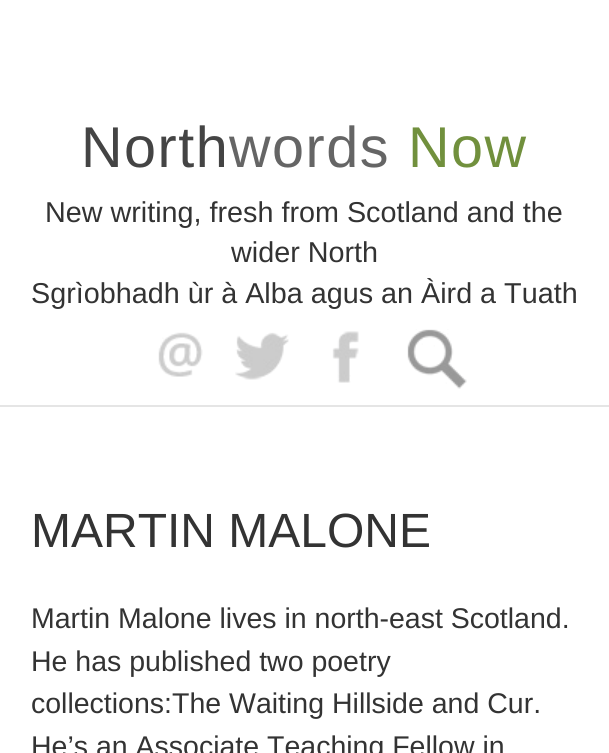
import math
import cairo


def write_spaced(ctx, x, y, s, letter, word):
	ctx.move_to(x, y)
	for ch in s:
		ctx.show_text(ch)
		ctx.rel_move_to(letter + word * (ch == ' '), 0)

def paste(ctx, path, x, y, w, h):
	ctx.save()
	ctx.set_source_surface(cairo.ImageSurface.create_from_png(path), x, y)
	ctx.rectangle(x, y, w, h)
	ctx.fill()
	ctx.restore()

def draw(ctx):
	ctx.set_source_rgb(1, 1, 1)
	ctx.paint()
	ctx.set_source_rgb(0.898, 0.898, 0.898)
	ctx.rectangle(0, 405, 609, 2)
	ctx.fill()
	ctx.select_font_face('Liberation Sans')
	ctx.set_font_size(57.5)
	ctx.set_source_rgb(0.267, 0.267, 0.267)
	write_spaced(ctx, 81, 167, 'North', 1.5, 0)
	ctx.set_source_rgb(0.396, 0.396, 0.396)
	write_spaced(ctx, 229, 167, 'words', 1.5, 0)
	ctx.set_source_rgb(0.443, 0.565, 0.239)
	write_spaced(ctx, 408, 167, 'Now', 1.5, 0)
	ctx.set_font_size(28.75)
	ctx.set_source_rgb(0.2, 0.2, 0.2)
	for x, y, s in [
		(45, 222, 'New writing, fresh from Scotland and the'),
		(231, 262, 'wider North'),
		(31, 303, 'Sgrìobhadh ùr à Alba agus an Àird a Tuath'),
	]:
		ctx.move_to(x, y)
		ctx.show_text(s)
	paste(ctx, 'media/1.png', 158, 332, 45, 45)
	paste(ctx, 'media/2.png', 235, 332, 54, 48)
	paste(ctx, 'media/3.png', 332, 331, 27, 52)
	paste(ctx, 'media/4.png', 407, 329, 60, 60)
	ctx.set_font_size(48)
	ctx.move_to(31, 547)
	ctx.show_text('MARTIN MALONE')
	ctx.set_font_size(28.5)
	for x, y, s in [
		(31, 628, 'Martin Malone lives in north-east Scotland.'),
		(31, 671, 'He has published two poetry'),
		(31, 713, 'collections:The Waiting Hillside and Cur.'),
		(31, 756, 'He’s an Associate Teaching Fellow in'),
	]:
		ctx.move_to(x, y)
		ctx.show_text(s)


surface = cairo.ImageSurface(cairo.FORMAT_RGB24, 609, 753)
ctx = cairo.Context(surface)
options = cairo.FontOptions()
options.set_hint_metrics(cairo.HINT_METRICS_OFF)
options.set_hint_style(cairo.HINT_STYLE_NONE)
ctx.set_font_options(options)
ctx.set_miter_limit(4)
draw(ctx)
surface.write_to_png('image.png')
